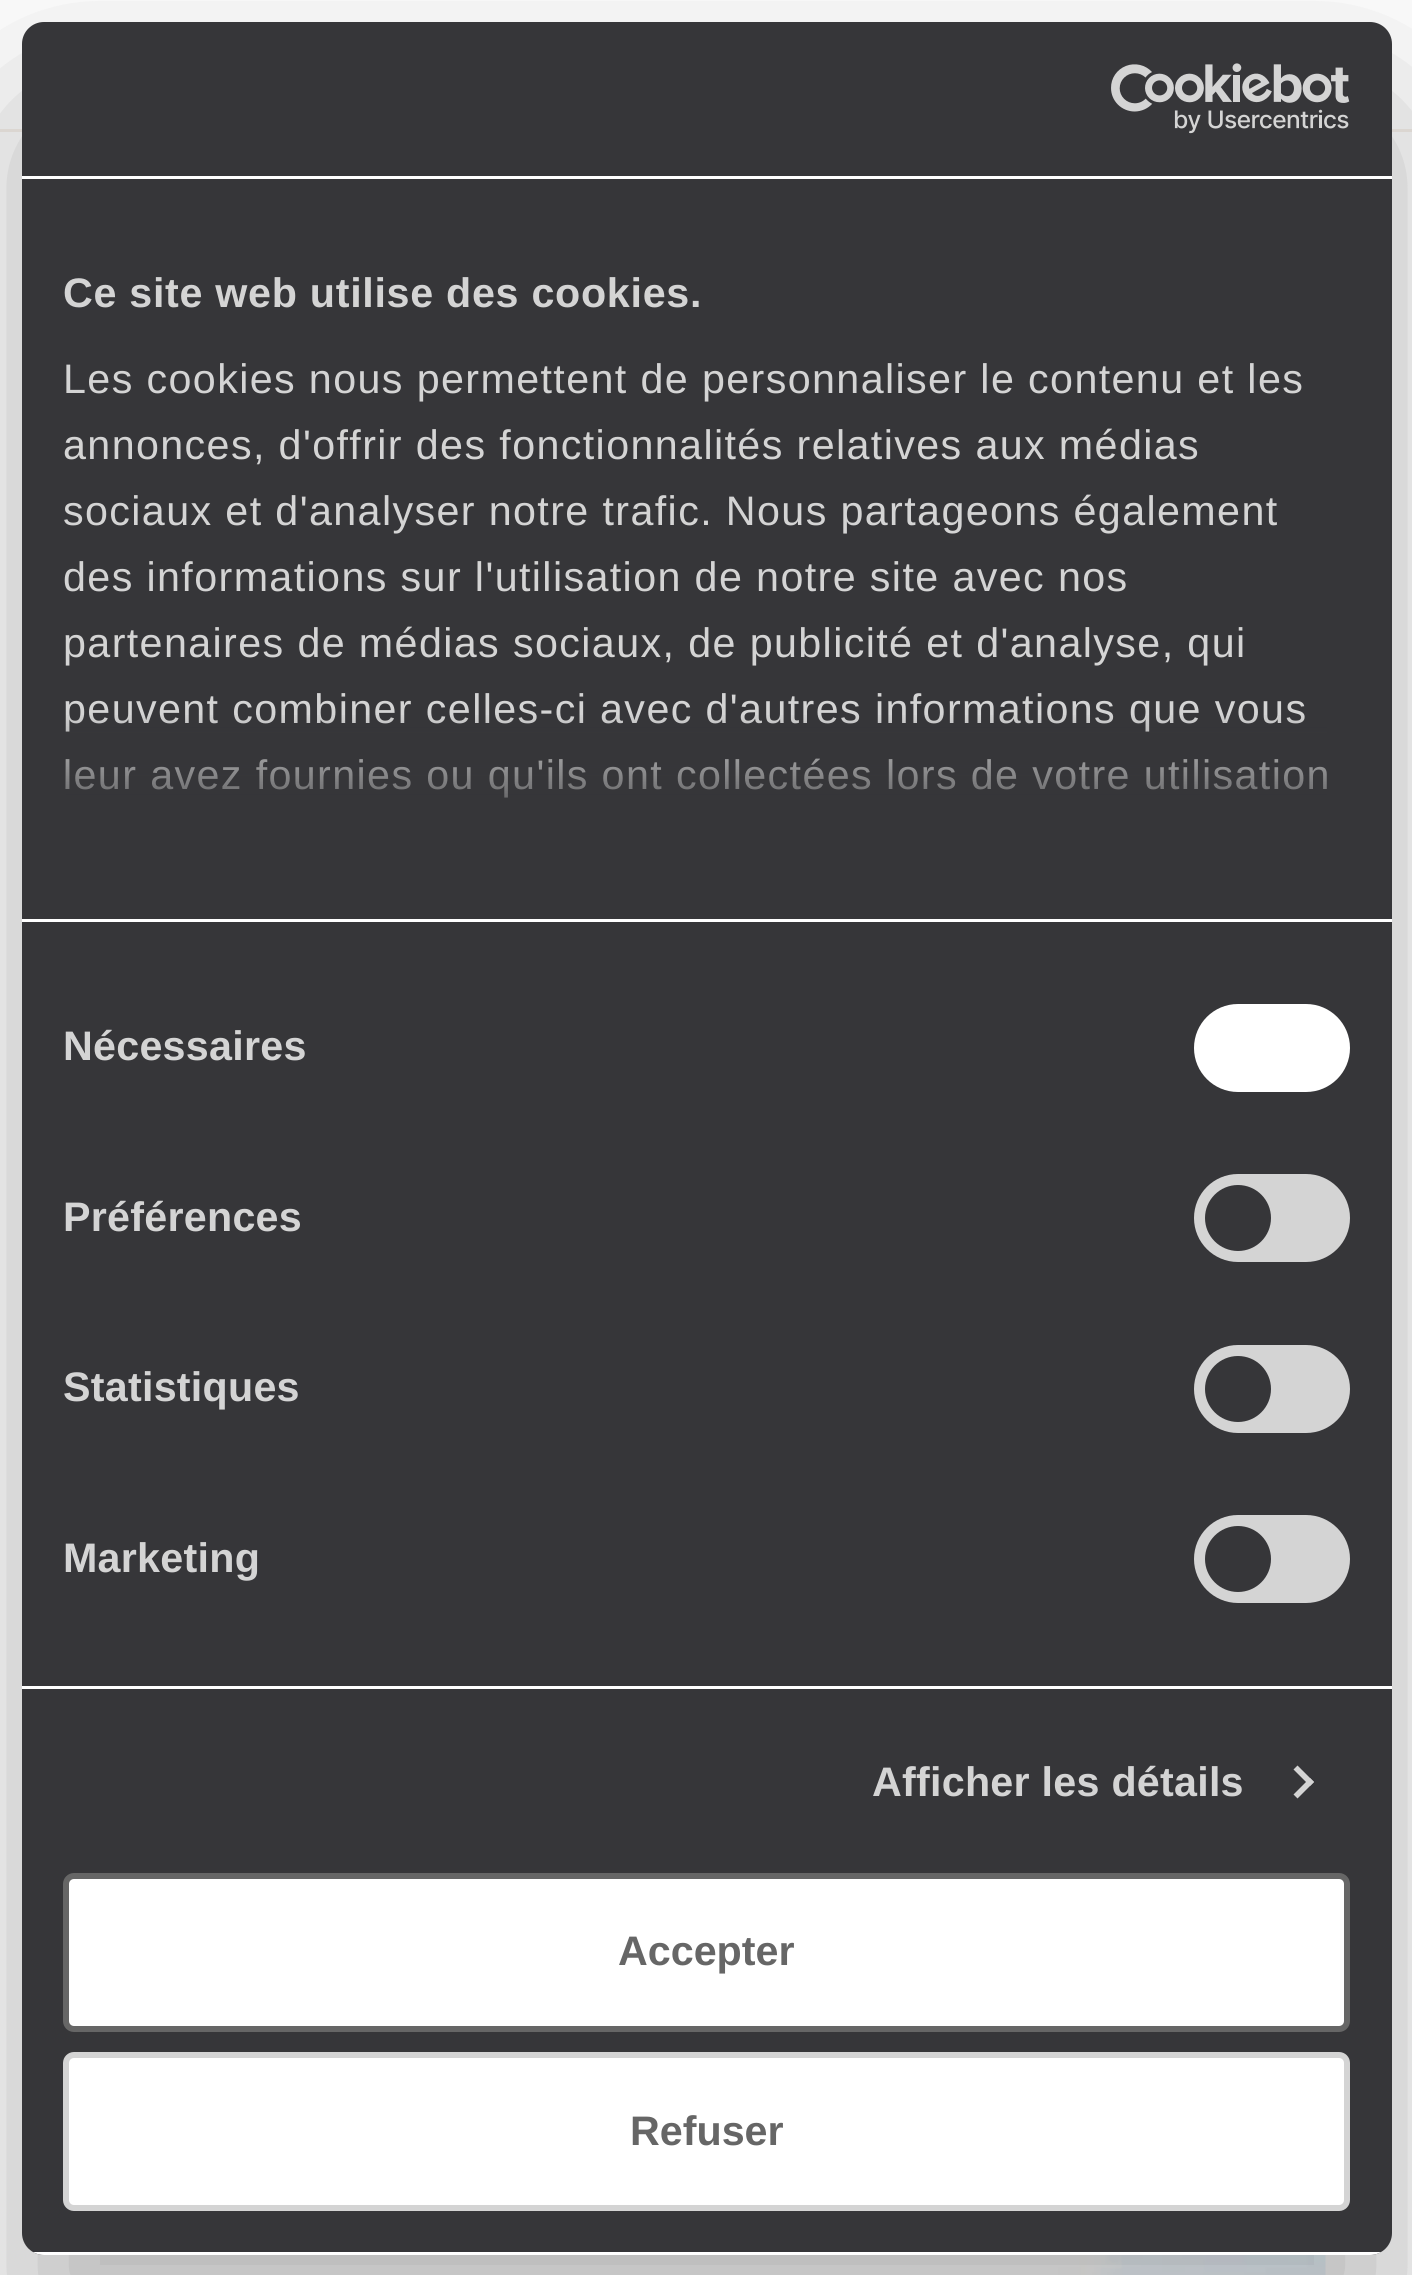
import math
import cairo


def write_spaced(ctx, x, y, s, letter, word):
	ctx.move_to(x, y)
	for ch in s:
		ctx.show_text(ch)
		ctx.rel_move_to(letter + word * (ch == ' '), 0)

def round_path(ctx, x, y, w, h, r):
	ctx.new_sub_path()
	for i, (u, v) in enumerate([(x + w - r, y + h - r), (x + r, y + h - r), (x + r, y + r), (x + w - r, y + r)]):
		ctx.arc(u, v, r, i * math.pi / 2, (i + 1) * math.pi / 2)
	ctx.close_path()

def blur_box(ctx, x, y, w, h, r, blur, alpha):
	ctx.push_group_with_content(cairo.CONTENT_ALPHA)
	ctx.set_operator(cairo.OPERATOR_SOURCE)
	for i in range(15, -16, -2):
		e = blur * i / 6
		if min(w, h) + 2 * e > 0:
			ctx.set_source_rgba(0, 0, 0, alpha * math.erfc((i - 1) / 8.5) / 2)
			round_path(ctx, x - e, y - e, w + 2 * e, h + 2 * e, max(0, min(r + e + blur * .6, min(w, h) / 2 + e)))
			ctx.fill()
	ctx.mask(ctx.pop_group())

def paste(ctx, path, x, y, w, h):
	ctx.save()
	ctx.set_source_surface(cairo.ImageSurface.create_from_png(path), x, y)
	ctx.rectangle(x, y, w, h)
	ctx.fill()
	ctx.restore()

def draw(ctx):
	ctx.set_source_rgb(1, 1, 1)
	ctx.paint()
	ctx.set_source_rgb(0.961, 0.941, 0.918)
	ctx.rectangle(0, 129, 1412, 3)
	ctx.fill()
	paste(ctx, 'media/2.png', 88, 2255, 1238, 20)
	ctx.set_source_rgb(0, 0, 0)
	blur_box(ctx, 22, 110, 1370, 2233, 22, 93.5, 0.3)
	ctx.set_source_rgb(0.212, 0.212, 0.224)
	round_path(ctx, 22, 22, 1370, 2233, 22)
	ctx.fill()
	ctx.set_source_rgb(1, 1, 1)
	ctx.rectangle(22, 176, 1370, 3)
	ctx.fill()
	paste(ctx, 'media/1.png', 1111, 63, 239, 71)
	ctx.rectangle(22, 919, 1370, 3)
	ctx.fill()
	ctx.select_font_face('Liberation Sans', cairo.FONT_SLANT_NORMAL, cairo.FONT_WEIGHT_BOLD)
	ctx.set_font_size(41.25)
	ctx.set_source_rgb(0.831, 0.831, 0.831)
	write_spaced(ctx, 63, 307, 'Ce site web utilise des cookies.', 0.7, 0)
	ctx.select_font_face('Liberation Sans')
	for x, y, s in [
		(63, 393, 'Les cookies nous permettent de personnaliser le contenu et les'),
		(63, 459, 'annonces, d\'offrir des fonctionnalités relatives aux médias'),
		(63, 525, 'sociaux et d\'analyser notre trafic. Nous partageons également'),
		(63, 591, 'des informations sur l\'utilisation de notre site avec nos'),
		(63, 657, 'partenaires de médias sociaux, de publicité et d\'analyse, qui'),
		(63, 723, 'peuvent combiner celles-ci avec d\'autres informations que vous'),
		(63, 789, 'leur avez fournies ou qu\'ils ont collectées lors de votre utilisation'),
	]:
		write_spaced(ctx, x, y, s, 1.38, 0)
	gradient = cairo.LinearGradient(689, 919, 689, 712)
	gradient.add_color_stop_rgba(0, 0.212, 0.212, 0.224, 1)
	gradient.add_color_stop_rgba(0.5, 0.212, 0.212, 0.224, 0.8)
	gradient.add_color_stop_rgba(1, 0.212, 0.212, 0.224, 0)
	ctx.set_source(gradient)
	ctx.rectangle(66, 715, 1261, 83)
	ctx.fill()
	ctx.set_source_rgb(1, 1, 1)
	ctx.rectangle(22, 1686, 1370, 3)
	ctx.fill()
	ctx.select_font_face('Liberation Sans', cairo.FONT_SLANT_NORMAL, cairo.FONT_WEIGHT_BOLD)
	ctx.set_source_rgb(0.831, 0.831, 0.831)
	write_spaced(ctx, 63, 1060, 'Nécessaires', 0.25, 0)
	ctx.set_source_rgb(1, 1, 1)
	round_path(ctx, 1194, 1004, 156, 88, 44)
	ctx.fill()
	ctx.set_source_rgb(0.831, 0.831, 0.831)
	write_spaced(ctx, 63, 1231, 'Préférences', 0.25, 0)
	round_path(ctx, 1194, 1174, 156, 88, 44)
	ctx.fill()
	ctx.set_source_rgb(0.212, 0.212, 0.224)
	ctx.arc(1238, 1218, 33, 0, 2 * math.pi)
	ctx.fill()
	ctx.set_source_rgb(0.831, 0.831, 0.831)
	write_spaced(ctx, 63, 1401, 'Statistiques', 0.25, 0)
	round_path(ctx, 1194, 1345, 156, 88, 44)
	ctx.fill()
	ctx.set_source_rgb(0.212, 0.212, 0.224)
	ctx.arc(1238, 1389, 33, 0, 2 * math.pi)
	ctx.fill()
	ctx.set_source_rgb(0.831, 0.831, 0.831)
	write_spaced(ctx, 63, 1572, 'Marketing', 0.25, 0)
	round_path(ctx, 1194, 1515, 156, 88, 44)
	ctx.fill()
	ctx.set_source_rgb(0.212, 0.212, 0.224)
	ctx.arc(1238, 1559, 33, 0, 2 * math.pi)
	ctx.fill()
	ctx.set_source_rgb(0.831, 0.831, 0.831)
	write_spaced(ctx, 872, 1796, 'Afficher les détails', 0.25, 0)
	ctx.new_path()
	ctx.move_to(1297.5, 1765.5)
	ctx.line_to(1314, 1782)
	ctx.line_to(1310, 1786)
	ctx.line_to(1293.5, 1769.5)
	ctx.close_path()
	ctx.fill()
	ctx.new_path()
	ctx.move_to(1310, 1778)
	ctx.line_to(1314, 1782)
	ctx.line_to(1297.5, 1798.5)
	ctx.line_to(1293.5, 1794.5)
	ctx.close_path()
	ctx.fill()
	ctx.save()
	round_path(ctx, 22, 22, 1370, 2233, 22)
	ctx.clip()
	ctx.set_source_rgb(1, 1, 1)
	ctx.rectangle(33, 2252, 1348, 3)
	ctx.fill()
	ctx.restore()
	ctx.set_source_rgb(1, 1, 1)
	round_path(ctx, 66, 1876, 1281, 153, 8)
	ctx.fill_preserve()
	ctx.set_source_rgb(0.4, 0.4, 0.4)
	ctx.set_line_width(6)
	ctx.stroke()
	ctx.move_to(618, 1965)
	ctx.show_text('Accepter')
	ctx.set_source_rgb(1, 1, 1)
	round_path(ctx, 66, 2055, 1281, 153, 8)
	ctx.fill_preserve()
	ctx.set_source_rgb(0.831, 0.831, 0.831)
	ctx.stroke()
	ctx.set_source_rgb(0.4, 0.4, 0.4)
	ctx.move_to(630, 2145)
	ctx.show_text('Refuser')


surface = cairo.ImageSurface(cairo.FORMAT_RGB24, 1412, 2275)
ctx = cairo.Context(surface)
options = cairo.FontOptions()
options.set_hint_metrics(cairo.HINT_METRICS_OFF)
options.set_hint_style(cairo.HINT_STYLE_NONE)
ctx.set_font_options(options)
ctx.set_miter_limit(4)
draw(ctx)
surface.write_to_png('image.png')
